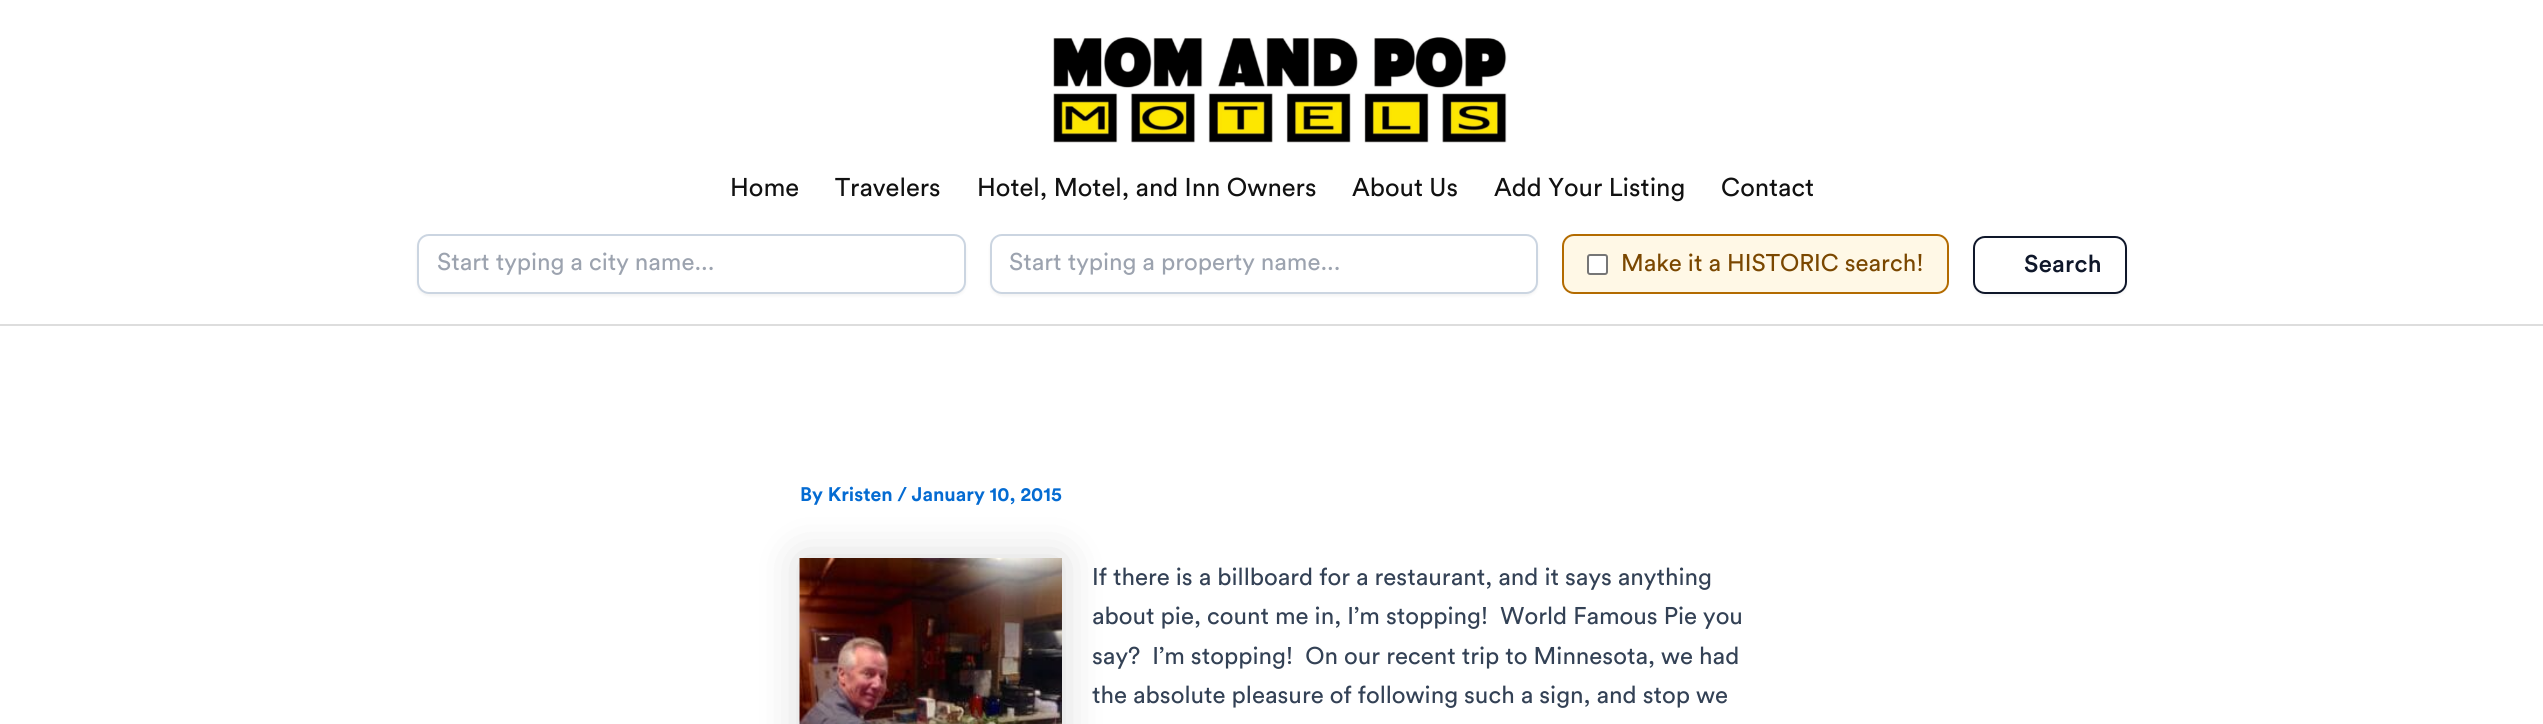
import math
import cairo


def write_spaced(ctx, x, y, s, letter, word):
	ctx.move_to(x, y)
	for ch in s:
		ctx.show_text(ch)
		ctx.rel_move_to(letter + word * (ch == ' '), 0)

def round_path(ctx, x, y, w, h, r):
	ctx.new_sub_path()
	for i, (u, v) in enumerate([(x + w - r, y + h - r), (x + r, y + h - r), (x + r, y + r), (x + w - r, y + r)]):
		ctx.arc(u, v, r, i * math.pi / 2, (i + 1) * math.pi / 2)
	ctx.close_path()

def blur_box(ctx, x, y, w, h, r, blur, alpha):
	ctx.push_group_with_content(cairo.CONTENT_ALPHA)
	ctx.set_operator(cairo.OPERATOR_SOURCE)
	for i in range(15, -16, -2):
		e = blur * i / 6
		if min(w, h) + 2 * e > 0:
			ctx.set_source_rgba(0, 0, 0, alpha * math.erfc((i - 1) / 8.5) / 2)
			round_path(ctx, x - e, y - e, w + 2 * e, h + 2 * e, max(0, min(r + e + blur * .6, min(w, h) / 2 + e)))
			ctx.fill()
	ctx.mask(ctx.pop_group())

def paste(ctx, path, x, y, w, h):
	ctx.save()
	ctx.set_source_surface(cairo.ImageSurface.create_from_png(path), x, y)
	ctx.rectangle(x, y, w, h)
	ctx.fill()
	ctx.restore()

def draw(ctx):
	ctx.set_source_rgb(1, 1, 1)
	ctx.paint()
	ctx.set_source_rgb(0.867, 0.867, 0.867)
	ctx.rectangle(0, 324, 2543, 2)
	ctx.fill()
	paste(ctx, 'media/1.png', 1053, 37, 454, 106)
	ctx.select_font_face('Circular')
	ctx.set_font_size(25.5)
	ctx.set_source_rgb(0.067, 0.067, 0.067)
	for x, y, s in [
		(730, 196, 'Home'),
		(835, 196, 'Travelers'),
		(977, 196, 'Hotel, Motel, and Inn Owners'),
		(1352, 196, 'About Us'),
		(1494, 196, 'Add Your Listing'),
		(1721, 196, 'Contact'),
	]:
		ctx.move_to(x, y)
		ctx.show_text(s)
	ctx.set_source_rgb(0, 0, 0)
	blur_box(ctx, 417, 236, 549, 60, 12, 1.5, 0.05)
	ctx.set_source_rgb(1, 1, 1)
	round_path(ctx, 418, 235, 547, 58, 11)
	ctx.fill_preserve()
	ctx.set_source_rgb(0.796, 0.835, 0.882)
	ctx.stroke()
	ctx.set_font_size(24)
	ctx.set_source_rgb(0.612, 0.639, 0.686)
	ctx.move_to(437, 270)
	ctx.show_text('Start typing a city name...')
	ctx.set_source_rgb(0, 0, 0)
	blur_box(ctx, 990, 236, 548, 60, 12, 1.5, 0.05)
	ctx.set_source_rgb(1, 1, 1)
	round_path(ctx, 991, 235, 546, 58, 11)
	ctx.fill_preserve()
	ctx.set_source_rgb(0.796, 0.835, 0.882)
	ctx.stroke()
	ctx.set_source_rgb(0.612, 0.639, 0.686)
	ctx.move_to(1009, 270)
	ctx.show_text('Start typing a property name...')
	ctx.set_source_rgb(1, 0.969, 0.902)
	round_path(ctx, 1563, 235, 385, 58, 11)
	ctx.fill_preserve()
	ctx.set_source_rgb(0.702, 0.42, 0)
	ctx.stroke()
	ctx.set_source_rgb(1, 1, 1)
	round_path(ctx, 1588, 255, 19, 19, 2)
	ctx.fill_preserve()
	ctx.set_source_rgb(0.463, 0.463, 0.463)
	ctx.stroke()
	ctx.set_source_rgb(0.478, 0.278, 0)
	ctx.move_to(1621, 271)
	ctx.show_text('Make it a HISTORIC search!')
	ctx.set_source_rgb(0, 0, 0)
	blur_box(ctx, 1973, 237, 154, 59, 12, 1.5, 0.05)
	ctx.set_source_rgb(1, 1, 1)
	round_path(ctx, 1974, 237, 152, 56, 11)
	ctx.fill_preserve()
	ctx.set_source_rgb(0.059, 0.09, 0.165)
	ctx.stroke()
	ctx.select_font_face('Circular Medium')
	write_spaced(ctx, 2024, 272, 'Search', 0.25, 0)
	ctx.set_source_rgb(0, 0, 0)
	blur_box(ctx, 800, 558, 262, 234, 0, 22.5, 0.15)
	ctx.select_font_face('Circular', cairo.FONT_SLANT_NORMAL, cairo.FONT_WEIGHT_BOLD)
	ctx.set_font_size(19.5)
	ctx.set_source_rgb(0.016, 0.42, 0.824)
	ctx.move_to(800, 501)
	ctx.show_text('By Kristen / January 10, 2015')
	paste(ctx, 'media/2.png', 799, 558, 263, 166)
	ctx.select_font_face('Circular')
	ctx.set_font_size(24)
	ctx.set_source_rgb(0.2, 0.255, 0.333)
	for x, y, s in [
		(1092, 585, 'If there is a billboard for a restaurant, and it says anything'),
		(1092, 624, 'about pie, count me in, I’m stopping!  World Famous Pie you'),
		(1092, 664, 'say?  I’m stopping!  On our recent trip to Minnesota, we had'),
		(1092, 703, 'the absolute pleasure of following such a sign, and stop we'),
	]:
		ctx.move_to(x, y)
		ctx.show_text(s)


surface = cairo.ImageSurface(cairo.FORMAT_RGB24, 2543, 724)
ctx = cairo.Context(surface)
options = cairo.FontOptions()
options.set_hint_metrics(cairo.HINT_METRICS_OFF)
options.set_hint_style(cairo.HINT_STYLE_NONE)
ctx.set_font_options(options)
ctx.set_miter_limit(4)
draw(ctx)
surface.write_to_png('image.png')
